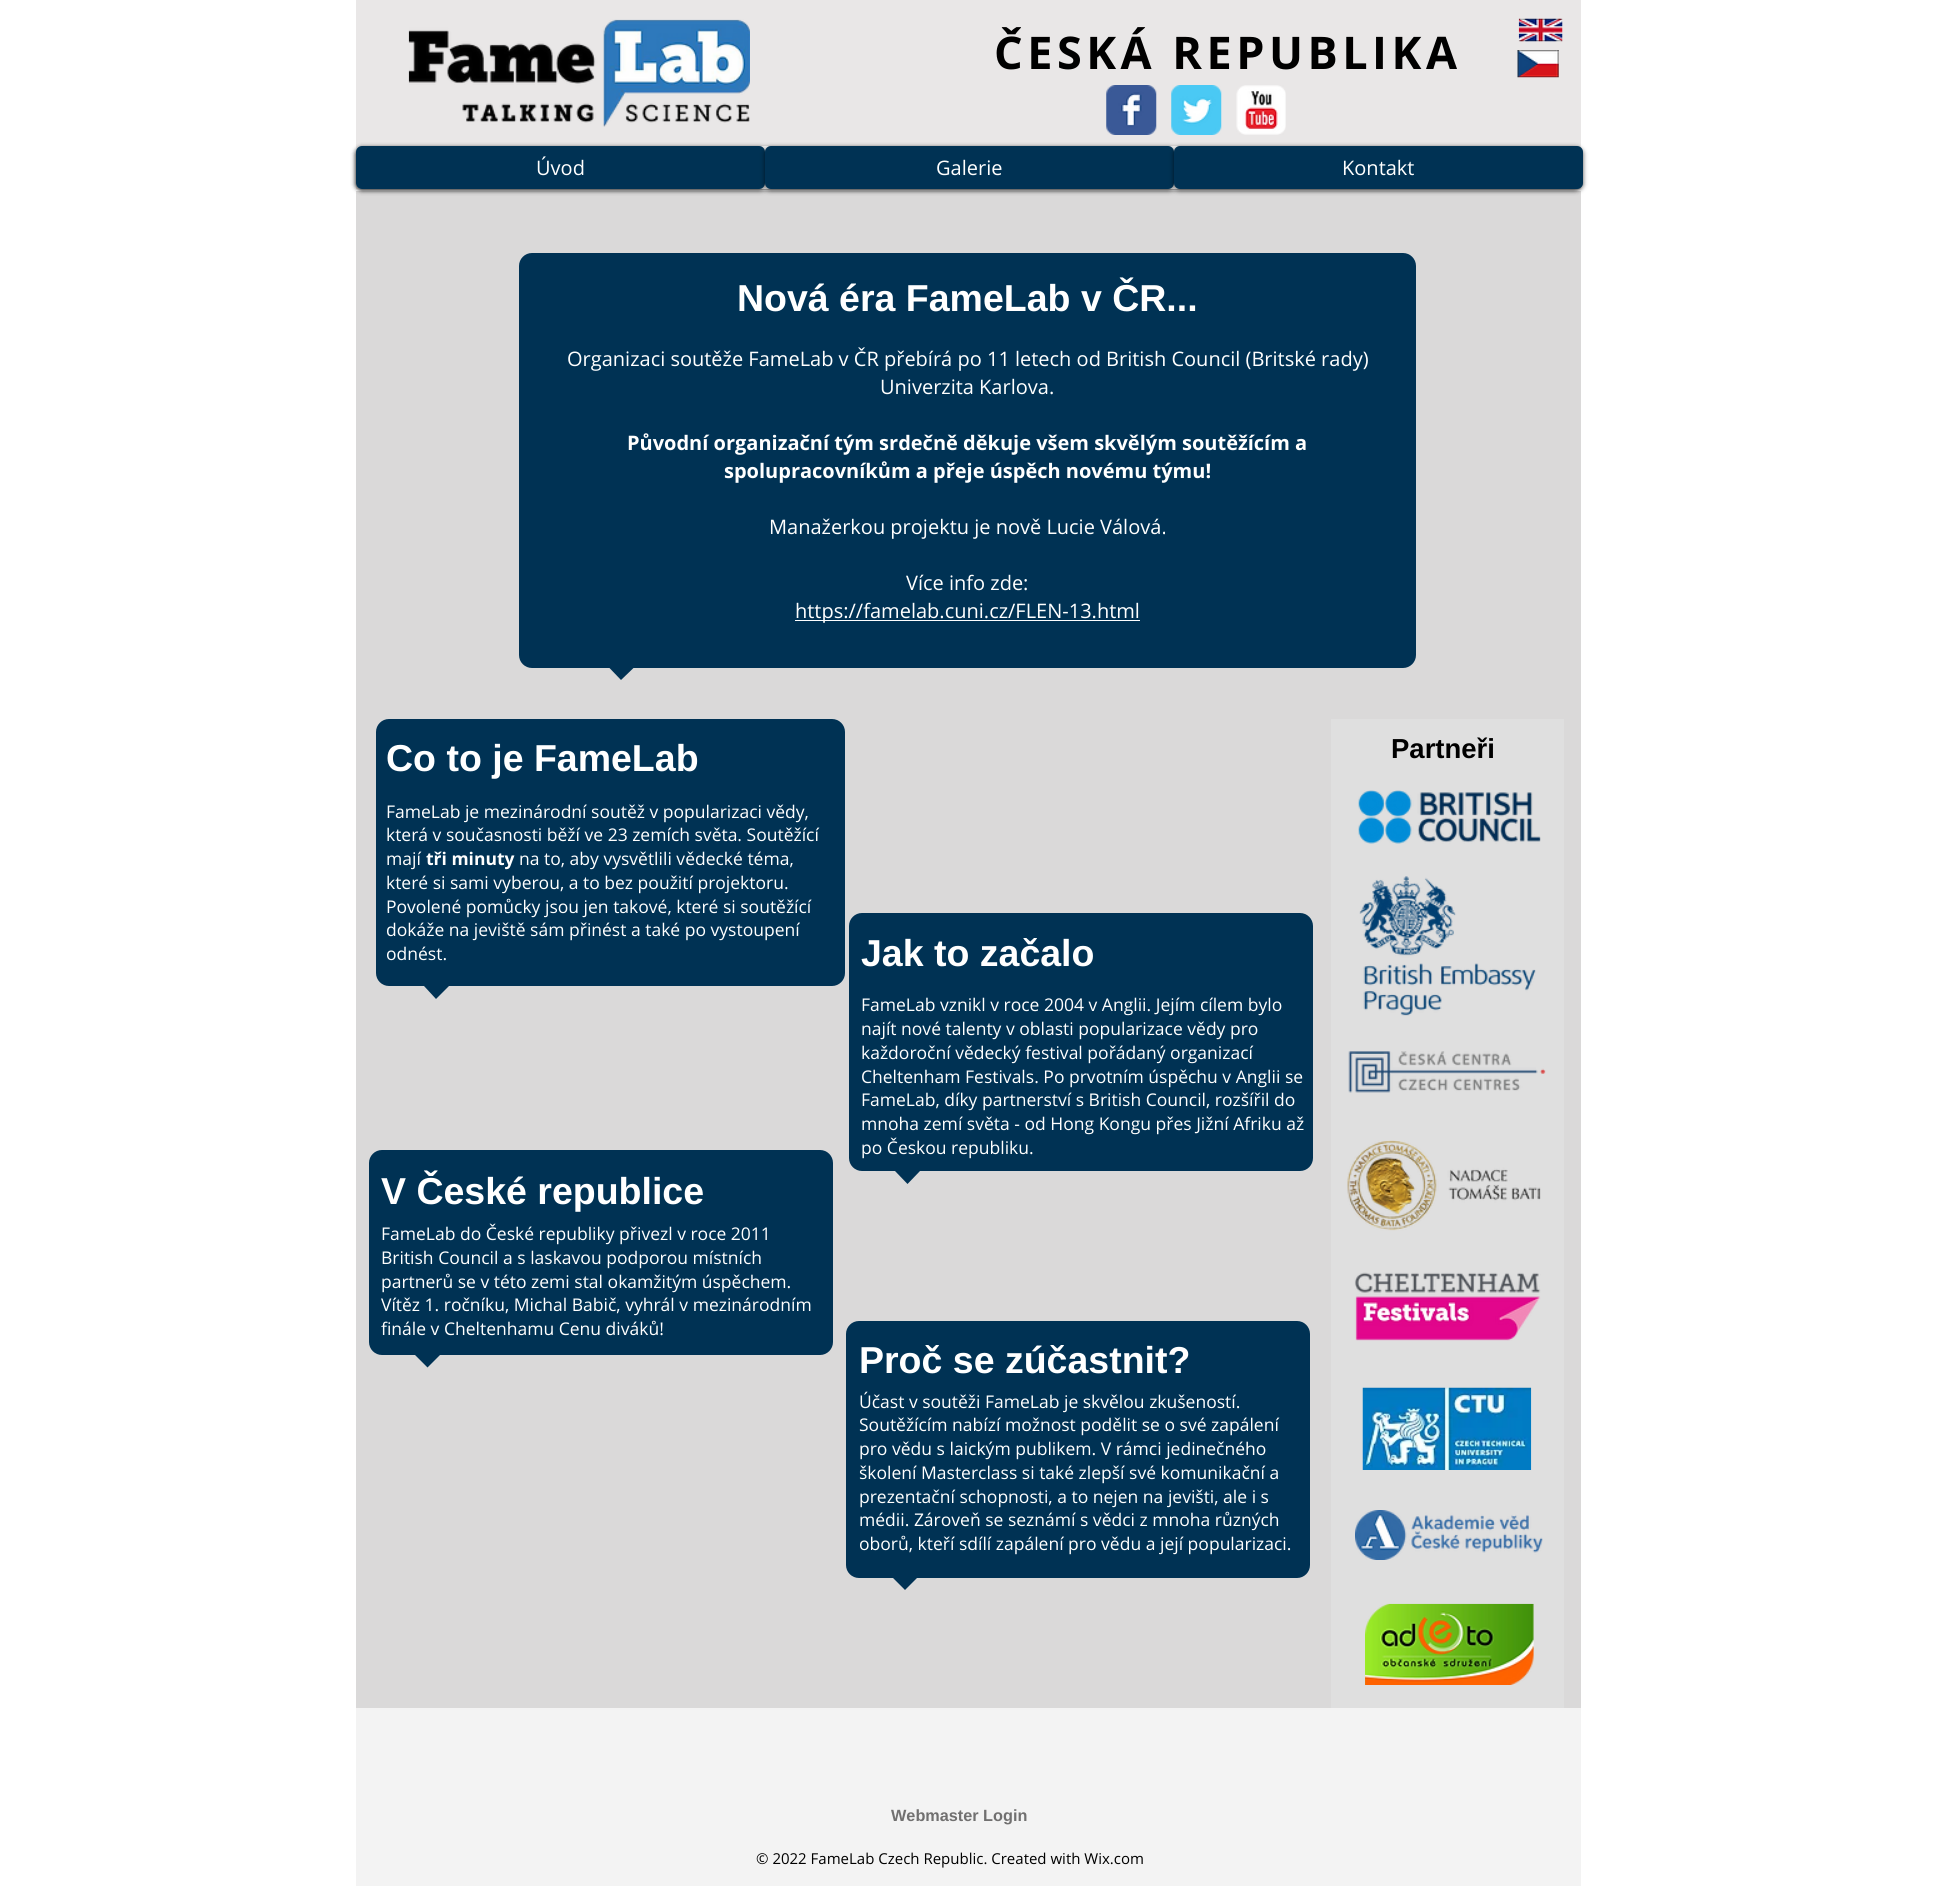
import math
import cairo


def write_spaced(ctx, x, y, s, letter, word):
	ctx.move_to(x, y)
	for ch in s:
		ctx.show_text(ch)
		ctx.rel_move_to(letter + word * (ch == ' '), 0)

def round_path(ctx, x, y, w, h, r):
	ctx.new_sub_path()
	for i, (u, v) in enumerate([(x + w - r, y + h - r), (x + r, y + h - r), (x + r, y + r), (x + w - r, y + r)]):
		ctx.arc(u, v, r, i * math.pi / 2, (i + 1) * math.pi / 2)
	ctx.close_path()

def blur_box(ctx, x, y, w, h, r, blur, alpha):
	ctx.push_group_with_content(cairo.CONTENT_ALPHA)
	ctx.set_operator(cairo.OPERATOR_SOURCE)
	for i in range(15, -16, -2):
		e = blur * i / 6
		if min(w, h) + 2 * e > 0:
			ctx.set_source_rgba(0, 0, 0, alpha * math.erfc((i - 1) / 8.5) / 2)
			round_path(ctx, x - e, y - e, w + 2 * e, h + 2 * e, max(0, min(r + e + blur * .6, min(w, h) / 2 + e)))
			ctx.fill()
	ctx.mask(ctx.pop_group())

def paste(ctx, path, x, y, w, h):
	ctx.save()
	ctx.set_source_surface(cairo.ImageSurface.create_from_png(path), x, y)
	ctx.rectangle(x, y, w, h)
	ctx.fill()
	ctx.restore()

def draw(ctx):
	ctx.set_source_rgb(1, 1, 1)
	ctx.paint()
	ctx.set_source_rgb(0.914, 0.906, 0.906)
	ctx.rectangle(356, 0, 1225, 189)
	ctx.fill()
	ctx.set_source_rgb(0.98, 0.976, 0.976)
	ctx.rectangle(356, 189, 1225, 1)
	ctx.fill()
	paste(ctx, 'media/1.png', 408, 19, 342, 108)
	paste(ctx, 'media/2.png', 1518, 18, 45, 24)
	paste(ctx, 'media/3.png', 1517, 50, 42, 28)
	paste(ctx, 'media/4.png', 1106, 85, 51, 50)
	paste(ctx, 'media/5.png', 1171, 85, 51, 50)
	paste(ctx, 'media/6.png', 1236, 85, 50, 50)
	ctx.select_font_face('Open Sans', cairo.FONT_SLANT_NORMAL, cairo.FONT_WEIGHT_BOLD)
	ctx.set_font_size(45)
	ctx.set_source_rgb(0, 0, 0)
	write_spaced(ctx, 994, 69, 'ČESKÁ REPUBLIKA', 4.5, 0)
	ctx.set_source_rgb(0.855, 0.851, 0.851)
	ctx.rectangle(356, 191, 1225, 1517)
	ctx.fill()
	ctx.set_source_rgb(0, 0, 0)
	blur_box(ctx, 356, 148, 1224, 42, 6, 2.5, 0.6)
	ctx.set_source_rgb(0.953, 0.953, 0.953)
	round_path(ctx, 356, 146, 1224, 43, 6)
	ctx.fill()
	ctx.set_source_rgb(0, 0, 0)
	blur_box(ctx, 356, 148, 409, 42, 6, 2.5, 0.6)
	ctx.set_source_rgb(0, 0.196, 0.329)
	round_path(ctx, 356, 146, 409, 43, 6)
	ctx.fill()
	ctx.select_font_face('Open Sans')
	ctx.set_font_size(20)
	ctx.set_source_rgb(1, 1, 1)
	ctx.move_to(536, 175)
	ctx.show_text('Úvod')
	ctx.set_source_rgb(0, 0, 0)
	blur_box(ctx, 765, 148, 409, 42, 6, 2.5, 0.6)
	ctx.set_source_rgb(0, 0.196, 0.329)
	round_path(ctx, 765, 146, 409, 43, 6)
	ctx.fill()
	ctx.set_source_rgb(1, 1, 1)
	ctx.move_to(936, 175)
	ctx.show_text('Galerie')
	ctx.set_source_rgb(0, 0, 0)
	blur_box(ctx, 1174, 148, 409, 42, 6, 2.5, 0.6)
	ctx.set_source_rgb(0, 0.196, 0.329)
	round_path(ctx, 1174, 146, 409, 43, 6)
	ctx.fill()
	ctx.set_source_rgb(1, 1, 1)
	ctx.move_to(1342, 175)
	ctx.show_text('Kontakt')
	ctx.set_source_rgb(0, 0.196, 0.329)
	round_path(ctx, 521.5, 255.5, 892, 410, 10.5)
	ctx.fill_preserve()
	ctx.set_line_width(5)
	ctx.stroke()
	ctx.select_font_face('Liberation Sans', cairo.FONT_SLANT_NORMAL, cairo.FONT_WEIGHT_BOLD)
	ctx.set_font_size(37.5)
	ctx.set_source_rgb(1, 1, 1)
	ctx.move_to(737, 311)
	ctx.show_text('Nová éra FameLab v ČR...')
	ctx.select_font_face('Open Sans')
	ctx.set_font_size(20)
	ctx.move_to(567, 366)
	ctx.show_text('Organizaci soutěže FameLab v ČR přebírá po 11 letech od British Council (Britské rady)')
	ctx.move_to(880, 394)
	ctx.show_text('Univerzita Karlova.')
	ctx.select_font_face('Open Sans', cairo.FONT_SLANT_NORMAL, cairo.FONT_WEIGHT_BOLD)
	ctx.move_to(627, 450)
	ctx.show_text('Původní organizační tým srdečně děkuje všem skvělým soutěžícím a')
	ctx.move_to(724, 478)
	ctx.show_text('spolupracovníkům a přeje úspěch novému týmu!')
	ctx.select_font_face('Open Sans')
	ctx.move_to(769, 534)
	ctx.show_text('Manažerkou projektu je nově Lucie Válová.')
	ctx.move_to(906, 590)
	ctx.show_text('Více info zde:')
	ctx.rectangle(795, 620, 345, 1)
	ctx.fill()
	ctx.move_to(795, 618)
	ctx.show_text('https://famelab.cuni.cz/FLEN-13.html')
	ctx.set_source_rgb(0, 0.196, 0.329)
	ctx.new_path()
	ctx.move_to(609, 667.5)
	ctx.line_to(634, 667.5)
	ctx.line_to(621, 680)
	ctx.close_path()
	ctx.fill()
	round_path(ctx, 378.5, 721.5, 464, 262, 10.5)
	ctx.fill_preserve()
	ctx.stroke()
	ctx.select_font_face('Liberation Sans', cairo.FONT_SLANT_NORMAL, cairo.FONT_WEIGHT_BOLD)
	ctx.set_font_size(37.5)
	ctx.set_source_rgb(1, 1, 1)
	ctx.move_to(386, 771)
	ctx.show_text('Co to je FameLab')
	ctx.select_font_face('Open Sans')
	ctx.set_font_size(17.5)
	for x, y, s in [
		(386, 818, 'FameLab je mezinárodní soutěž v popularizaci vědy,'),
		(386, 841, 'která v současnosti běží ve 23 zemích světa. Soutěžící'),
		(386, 865, 'mají'),
	]:
		ctx.move_to(x, y)
		ctx.show_text(s)
	ctx.select_font_face('Open Sans', cairo.FONT_SLANT_NORMAL, cairo.FONT_WEIGHT_BOLD)
	ctx.move_to(426, 865)
	ctx.show_text('tři minuty')
	ctx.select_font_face('Open Sans')
	for x, y, s in [
		(519, 865, 'na to, aby vysvětlili vědecké téma,'),
		(386, 889, 'které si sami vyberou, a to bez použití projektoru.'),
		(386, 913, 'Povolené pomůcky jsou jen takové, které si soutěžící'),
		(386, 936, 'dokáže na jeviště sám přinést a také po vystoupení'),
		(386, 960, 'odnést.'),
	]:
		ctx.move_to(x, y)
		ctx.show_text(s)
	ctx.set_source_rgb(0, 0.196, 0.329)
	ctx.new_path()
	ctx.move_to(424, 986)
	ctx.line_to(449, 986)
	ctx.line_to(436, 999)
	ctx.close_path()
	ctx.fill()
	ctx.set_source_rgb(0.875, 0.875, 0.875)
	ctx.rectangle(1331, 719, 233, 989)
	ctx.fill()
	ctx.select_font_face('Liberation Sans', cairo.FONT_SLANT_NORMAL, cairo.FONT_WEIGHT_BOLD)
	ctx.set_font_size(27.5)
	ctx.set_source_rgb(0, 0, 0)
	ctx.move_to(1391, 758)
	ctx.show_text('Partneři')
	paste(ctx, 'media/7.png', 1358, 790, 183, 54)
	paste(ctx, 'media/8.png', 1359, 876, 177, 140)
	paste(ctx, 'media/9.png', 1348, 1051, 198, 42)
	paste(ctx, 'media/10.png', 1347, 1140, 194, 91)
	paste(ctx, 'media/11.png', 1354, 1272, 187, 69)
	paste(ctx, 'media/12.png', 1362, 1387, 170, 83)
	paste(ctx, 'media/13.png', 1355, 1510, 188, 50)
	paste(ctx, 'media/14.png', 1365, 1603, 169, 82)
	ctx.set_source_rgb(0, 0.196, 0.329)
	round_path(ctx, 851.5, 915.5, 459, 253, 10.5)
	ctx.fill_preserve()
	ctx.stroke()
	ctx.set_font_size(37.5)
	ctx.set_source_rgb(1, 1, 1)
	ctx.move_to(861, 966)
	ctx.show_text('Jak to začalo')
	ctx.select_font_face('Open Sans')
	ctx.set_font_size(17.5)
	for x, y, s in [
		(861, 1011, 'FameLab vznikl v roce 2004 v Anglii. Jejím cílem bylo'),
		(861, 1035, 'najít nové talenty v oblasti popularizace vědy pro'),
		(861, 1059, 'každoroční vědecký festival pořádaný organizací'),
		(861, 1083, 'Cheltenham Festivals. Po prvotním úspěchu v Anglii se'),
		(861, 1106, 'FameLab, díky partnerství s British Council, rozšířil do'),
		(861, 1130, 'mnoha zemí světa - od Hong Kongu přes Jižní Afriku až'),
		(861, 1154, 'po Českou republiku.'),
	]:
		ctx.move_to(x, y)
		ctx.show_text(s)
	ctx.set_source_rgb(0, 0.196, 0.329)
	ctx.new_path()
	ctx.move_to(895, 1171)
	ctx.line_to(920, 1171)
	ctx.line_to(907.5, 1184)
	ctx.close_path()
	ctx.fill()
	round_path(ctx, 371.5, 1152.5, 459, 200, 10.5)
	ctx.fill_preserve()
	ctx.stroke()
	ctx.select_font_face('Liberation Sans', cairo.FONT_SLANT_NORMAL, cairo.FONT_WEIGHT_BOLD)
	ctx.set_font_size(37.5)
	ctx.set_source_rgb(1, 1, 1)
	ctx.move_to(381, 1204)
	ctx.show_text('V České republice')
	ctx.select_font_face('Open Sans')
	ctx.set_font_size(17.5)
	for x, y, s in [
		(381, 1240, 'FameLab do České republiky přivezl v roce 2011'),
		(381, 1264, 'British Council a s laskavou podporou místních'),
		(381, 1288, 'partnerů se v této zemi stal okamžitým úspěchem.'),
		(381, 1311, 'Vítěz 1. ročníku, Michal Babič, vyhrál v mezinárodním'),
		(381, 1335, 'finále v Cheltenhamu Cenu diváků!'),
	]:
		ctx.move_to(x, y)
		ctx.show_text(s)
	ctx.set_source_rgb(0, 0.196, 0.329)
	ctx.new_path()
	ctx.move_to(415, 1355)
	ctx.line_to(440, 1355)
	ctx.line_to(427.5, 1367.5)
	ctx.close_path()
	ctx.fill()
	round_path(ctx, 848.5, 1323.5, 459, 252, 10.5)
	ctx.fill_preserve()
	ctx.stroke()
	ctx.select_font_face('Liberation Sans', cairo.FONT_SLANT_NORMAL, cairo.FONT_WEIGHT_BOLD)
	ctx.set_font_size(37.5)
	ctx.set_source_rgb(1, 1, 1)
	ctx.move_to(859, 1373)
	ctx.show_text('Proč se zúčastnit?')
	ctx.select_font_face('Open Sans')
	ctx.set_font_size(17.5)
	for x, y, s in [
		(859, 1408, 'Účast v soutěži FameLab je skvělou zkušeností.'),
		(859, 1431, 'Soutěžícím nabízí možnost podělit se o své zapálení'),
		(859, 1455, 'pro vědu s laickým publikem. V rámci jedinečného'),
		(859, 1479, 'školení Masterclass si také zlepší své komunikační a'),
		(859, 1503, 'prezentační schopnosti, a to nejen na jevišti, ale i s'),
		(859, 1526, 'médii. Zároveň se seznámí s vědci z mnoha různých'),
		(859, 1550, 'oborů, kteří sdílí zapálení pro vědu a její popularizaci.'),
	]:
		ctx.move_to(x, y)
		ctx.show_text(s)
	ctx.set_source_rgb(0, 0.196, 0.329)
	ctx.new_path()
	ctx.move_to(892.5, 1577.5)
	ctx.line_to(917.5, 1577.5)
	ctx.line_to(905, 1590)
	ctx.close_path()
	ctx.fill()
	ctx.set_source_rgb(0.953, 0.953, 0.953)
	ctx.rectangle(356, 1708, 1225, 178)
	ctx.fill()
	ctx.select_font_face('Liberation Sans', cairo.FONT_SLANT_NORMAL, cairo.FONT_WEIGHT_BOLD)
	ctx.set_font_size(16.25)
	ctx.set_source_rgb(0.443, 0.439, 0.439)
	ctx.move_to(891, 1821)
	ctx.show_text('Webmaster Login')
	ctx.select_font_face('Open Sans')
	ctx.set_font_size(15)
	ctx.set_source_rgb(0, 0, 0)
	ctx.move_to(756, 1864)
	ctx.show_text('© 2022 FameLab Czech Republic. Created with Wix.com')


surface = cairo.ImageSurface(cairo.FORMAT_RGB24, 1937, 1886)
ctx = cairo.Context(surface)
options = cairo.FontOptions()
options.set_hint_metrics(cairo.HINT_METRICS_OFF)
options.set_hint_style(cairo.HINT_STYLE_NONE)
ctx.set_font_options(options)
ctx.set_miter_limit(4)
draw(ctx)
surface.write_to_png('image.png')
